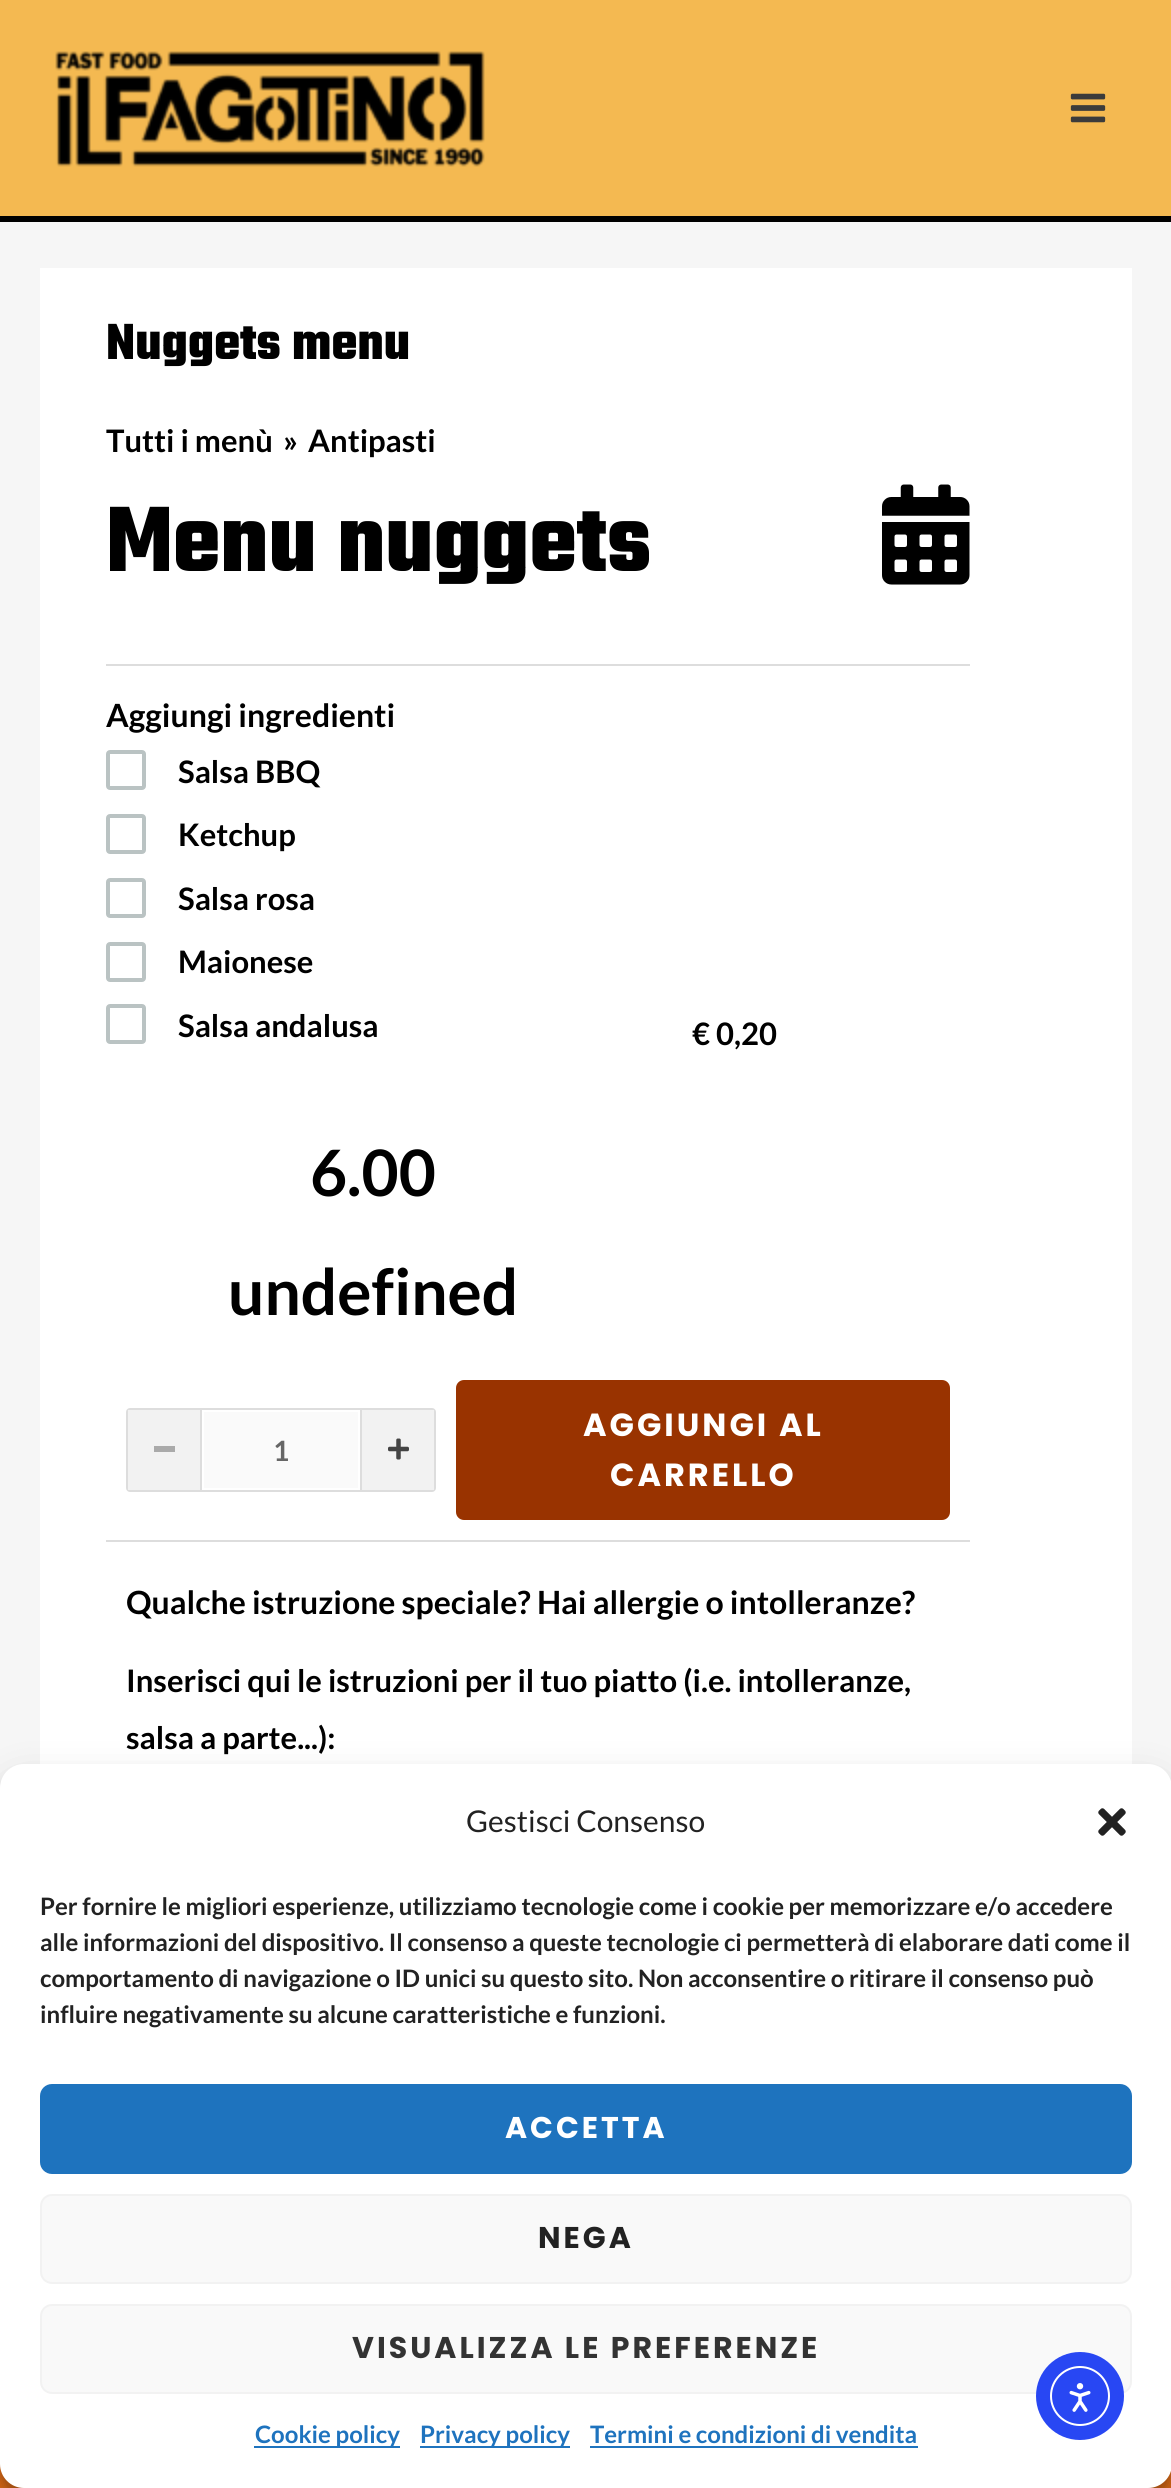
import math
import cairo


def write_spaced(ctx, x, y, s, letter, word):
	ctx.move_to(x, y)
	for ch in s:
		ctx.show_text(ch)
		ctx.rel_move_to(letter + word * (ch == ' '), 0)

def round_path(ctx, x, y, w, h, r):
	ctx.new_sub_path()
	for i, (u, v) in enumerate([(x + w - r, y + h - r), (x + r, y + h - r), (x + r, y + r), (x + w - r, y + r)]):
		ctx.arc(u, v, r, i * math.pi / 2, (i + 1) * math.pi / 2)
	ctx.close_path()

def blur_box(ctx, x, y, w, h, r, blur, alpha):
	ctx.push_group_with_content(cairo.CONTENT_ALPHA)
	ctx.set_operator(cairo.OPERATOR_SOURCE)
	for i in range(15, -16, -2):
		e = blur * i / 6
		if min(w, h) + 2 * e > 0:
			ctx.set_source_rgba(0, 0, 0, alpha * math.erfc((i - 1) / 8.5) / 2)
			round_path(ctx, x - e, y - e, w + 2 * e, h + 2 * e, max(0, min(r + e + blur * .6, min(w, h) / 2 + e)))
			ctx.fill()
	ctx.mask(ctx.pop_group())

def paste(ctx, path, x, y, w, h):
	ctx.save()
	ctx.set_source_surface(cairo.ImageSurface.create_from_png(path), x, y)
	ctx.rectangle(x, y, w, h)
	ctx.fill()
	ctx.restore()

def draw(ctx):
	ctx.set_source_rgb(0.961, 0.961, 0.961)
	ctx.paint()
	ctx.set_source_rgb(0.957, 0.725, 0.318)
	ctx.rectangle(0, 0, 1171, 216)
	ctx.fill()
	ctx.set_source_rgb(0, 0, 0)
	ctx.rectangle(0, 216, 1171, 6)
	ctx.fill()
	paste(ctx, 'media/1.png', 55, 51, 430, 116)
	paste(ctx, 'media/2.png', 1070, 93, 36, 30)
	ctx.set_source_rgb(1, 1, 1)
	ctx.rectangle(40, 268, 1092, 1496)
	ctx.fill()
	ctx.select_font_face('Teko Light')
	ctx.set_font_size(54.75)
	ctx.set_source_rgb(0, 0, 0)
	ctx.move_to(106, 359)
	ctx.show_text('Nuggets menu')
	ctx.select_font_face('Lato', cairo.FONT_SLANT_NORMAL, cairo.FONT_WEIGHT_BOLD)
	ctx.set_font_size(31)
	for x, y, s in [
		(106, 452, 'Tutti i menù'),
		(283, 452, '»'),
		(308, 452, 'Antipasti'),
	]:
		ctx.move_to(x, y)
		ctx.show_text(s)
	ctx.set_source_rgb(0.867, 0.867, 0.867)
	ctx.rectangle(106, 664, 864, 2)
	ctx.fill()
	ctx.select_font_face('Teko Light')
	ctx.set_font_size(100)
	ctx.set_source_rgb(0, 0, 0)
	ctx.move_to(106, 571)
	ctx.show_text('Menu nuggets')
	paste(ctx, 'media/3.png', 882, 484, 88, 101)
	ctx.select_font_face('Lato', cairo.FONT_SLANT_NORMAL, cairo.FONT_WEIGHT_BOLD)
	ctx.set_font_size(32)
	ctx.move_to(106, 727)
	ctx.show_text('Aggiungi ingredienti')
	round_path(ctx, 108, 752, 36, 36, 2)
	ctx.set_source_rgb(0.729, 0.765, 0.765)
	ctx.set_line_width(4)
	ctx.stroke()
	ctx.set_font_size(31)
	ctx.set_source_rgb(0, 0, 0)
	ctx.move_to(178, 783)
	ctx.show_text('Salsa BBQ')
	round_path(ctx, 108, 816, 36, 36, 2)
	ctx.set_source_rgb(0.729, 0.765, 0.765)
	ctx.stroke()
	ctx.set_source_rgb(0, 0, 0)
	ctx.move_to(178, 846)
	ctx.show_text('Ketchup')
	round_path(ctx, 108, 880, 36, 36, 2)
	ctx.set_source_rgb(0.729, 0.765, 0.765)
	ctx.stroke()
	ctx.set_source_rgb(0, 0, 0)
	ctx.move_to(178, 910)
	ctx.show_text('Salsa rosa')
	round_path(ctx, 108, 944, 36, 36, 2)
	ctx.set_source_rgb(0.729, 0.765, 0.765)
	ctx.stroke()
	ctx.set_source_rgb(0, 0, 0)
	ctx.move_to(178, 973)
	ctx.show_text('Maionese')
	round_path(ctx, 108, 1006, 36, 36, 2)
	ctx.set_source_rgb(0.729, 0.765, 0.765)
	ctx.stroke()
	ctx.set_source_rgb(0, 0, 0)
	ctx.move_to(178, 1037)
	ctx.show_text('Salsa andalusa')
	ctx.move_to(692, 1045)
	ctx.show_text('€ 0,20')
	ctx.set_source_rgb(0.867, 0.867, 0.867)
	ctx.rectangle(106, 1540, 864, 2)
	ctx.fill()
	ctx.set_font_size(64)
	ctx.set_source_rgb(0, 0, 0)
	ctx.move_to(310, 1196)
	ctx.show_text('6.00')
	ctx.move_to(228, 1315)
	ctx.show_text('undefined')
	round_path(ctx, 127, 1409, 308, 82, 3)
	ctx.set_source_rgb(0.867, 0.867, 0.867)
	ctx.set_line_width(2)
	ctx.stroke()
	ctx.set_source_rgb(0.949, 0.949, 0.949)
	ctx.rectangle(128, 1410, 72, 80)
	ctx.fill()
	ctx.set_source_rgb(0.867, 0.867, 0.867)
	ctx.rectangle(200, 1410, 2, 80)
	ctx.fill()
	ctx.set_source_rgb(0.667, 0.667, 0.667)
	ctx.rectangle(154, 1446, 21, 6)
	ctx.fill()
	ctx.set_source_rgb(0.98, 0.98, 0.98)
	ctx.rectangle(204, 1412, 154, 76)
	ctx.fill()
	ctx.set_font_size(28)
	ctx.set_source_rgb(0.4, 0.4, 0.4)
	ctx.move_to(273, 1461)
	ctx.show_text('1')
	ctx.set_source_rgb(0.949, 0.949, 0.949)
	ctx.rectangle(362, 1410, 72, 80)
	ctx.fill()
	ctx.set_source_rgb(0.867, 0.867, 0.867)
	ctx.rectangle(360, 1410, 2, 80)
	ctx.fill()
	paste(ctx, 'media/4.png', 388, 1438, 21, 22)
	ctx.set_source_rgb(0.6, 0.2, 0)
	round_path(ctx, 456, 1380, 494, 140, 8)
	ctx.fill()
	ctx.select_font_face('Poppins', cairo.FONT_SLANT_NORMAL, cairo.FONT_WEIGHT_BOLD)
	ctx.set_font_size(32)
	ctx.set_source_rgb(1, 1, 1)
	write_spaced(ctx, 583, 1436, 'AGGIUNGI AL', 3, 0)
	write_spaced(ctx, 610, 1486, 'CARRELLO', 3, 0)
	ctx.select_font_face('Lato', cairo.FONT_SLANT_NORMAL, cairo.FONT_WEIGHT_BOLD)
	ctx.set_source_rgb(0, 0, 0)
	ctx.move_to(126, 1614)
	ctx.show_text('Qualche istruzione speciale? Hai allergie o intolleranze?')
	ctx.set_font_size(31)
	ctx.move_to(126, 1692)
	ctx.show_text('Inserisci qui le istruzioni per il tuo piatto (i.e. intolleranze,')
	ctx.move_to(126, 1749)
	ctx.show_text('salsa a parte...):')
	ctx.set_source_rgb(0.914, 0.443, 0.094)
	ctx.rectangle(0, 2464, 1171, 24)
	ctx.fill()
	ctx.set_source_rgb(0, 0, 0)
	blur_box(ctx, 0, 1776, 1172, 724, 24, 6, 0.23)
	blur_box(ctx, 0, 1784, 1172, 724, 24, 20, 0.19)
	ctx.set_source_rgb(1, 1, 1)
	round_path(ctx, 0, 1764, 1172, 724, 24)
	ctx.fill()
	ctx.select_font_face('Lato')
	ctx.set_font_size(30)
	ctx.set_source_rgb(0.133, 0.133, 0.133)
	ctx.move_to(466, 1832)
	ctx.show_text('Gestisci Consenso')
	paste(ctx, 'media/5.png', 1098, 1808, 28, 28)
	ctx.select_font_face('Lato', cairo.FONT_SLANT_NORMAL, cairo.FONT_WEIGHT_BOLD)
	ctx.set_font_size(24)
	for x, y, s in [
		(40, 1915, 'Per fornire le migliori esperienze, utilizziamo tecnologie come i cookie per memorizzare e/o accedere'),
		(40, 1951, 'alle informazioni del dispositivo. Il consenso a queste tecnologie ci permetterà di elaborare dati come il'),
		(40, 1987, 'comportamento di navigazione o ID unici su questo sito. Non acconsentire o ritirare il consenso può'),
		(40, 2023, 'influire negativamente su alcune caratteristiche e funzioni.'),
	]:
		ctx.move_to(x, y)
		ctx.show_text(s)
	ctx.set_source_rgb(0.118, 0.451, 0.745)
	round_path(ctx, 41, 2085, 1090, 88, 11)
	ctx.fill_preserve()
	ctx.stroke()
	ctx.select_font_face('Poppins', cairo.FONT_SLANT_NORMAL, cairo.FONT_WEIGHT_BOLD)
	ctx.set_font_size(30)
	ctx.set_source_rgb(1, 1, 1)
	write_spaced(ctx, 505, 2138, 'ACCETTA', 3, 0)
	ctx.set_source_rgb(0.976, 0.976, 0.976)
	round_path(ctx, 41, 2195, 1090, 88, 11)
	ctx.fill_preserve()
	ctx.set_source_rgb(0.949, 0.949, 0.949)
	ctx.stroke()
	ctx.set_source_rgb(0.133, 0.133, 0.133)
	write_spaced(ctx, 538, 2248, 'NEGA', 3, 0)
	ctx.set_source_rgb(0.976, 0.976, 0.976)
	round_path(ctx, 41, 2305, 1090, 88, 11)
	ctx.fill_preserve()
	ctx.set_source_rgb(0.949, 0.949, 0.949)
	ctx.stroke()
	ctx.set_source_rgb(0.2, 0.2, 0.2)
	write_spaced(ctx, 352, 2358, 'VISUALIZZA LE PREFERENZE', 3, 0)
	ctx.set_source_rgb(0.118, 0.451, 0.745)
	ctx.rectangle(254, 2446, 146, 2)
	ctx.fill()
	ctx.select_font_face('Lato', cairo.FONT_SLANT_NORMAL, cairo.FONT_WEIGHT_BOLD)
	ctx.set_font_size(24)
	ctx.move_to(255, 2443)
	ctx.show_text('Cookie policy')
	ctx.rectangle(420, 2446, 150, 2)
	ctx.fill()
	ctx.move_to(420, 2443)
	ctx.show_text('Privacy policy')
	ctx.move_to(590, 2443)
	ctx.show_text('Termini e condizioni di vendita')
	ctx.rectangle(590, 2446, 328, 2)
	ctx.fill()
	ctx.set_source_rgb(0.157, 0.278, 0.953)
	ctx.arc(1080, 2396, 44, 0, 2 * math.pi)
	ctx.fill()
	ctx.arc(1080, 2396, 29, 0, 2 * math.pi)
	ctx.set_source_rgb(1, 1, 1)
	ctx.stroke()
	paste(ctx, 'media/6.png', 1069, 2383, 22, 29)


surface = cairo.ImageSurface(cairo.FORMAT_RGB24, 1171, 2488)
ctx = cairo.Context(surface)
options = cairo.FontOptions()
options.set_hint_metrics(cairo.HINT_METRICS_OFF)
options.set_hint_style(cairo.HINT_STYLE_NONE)
ctx.set_font_options(options)
ctx.set_miter_limit(4)
draw(ctx)
surface.write_to_png('image.png')
